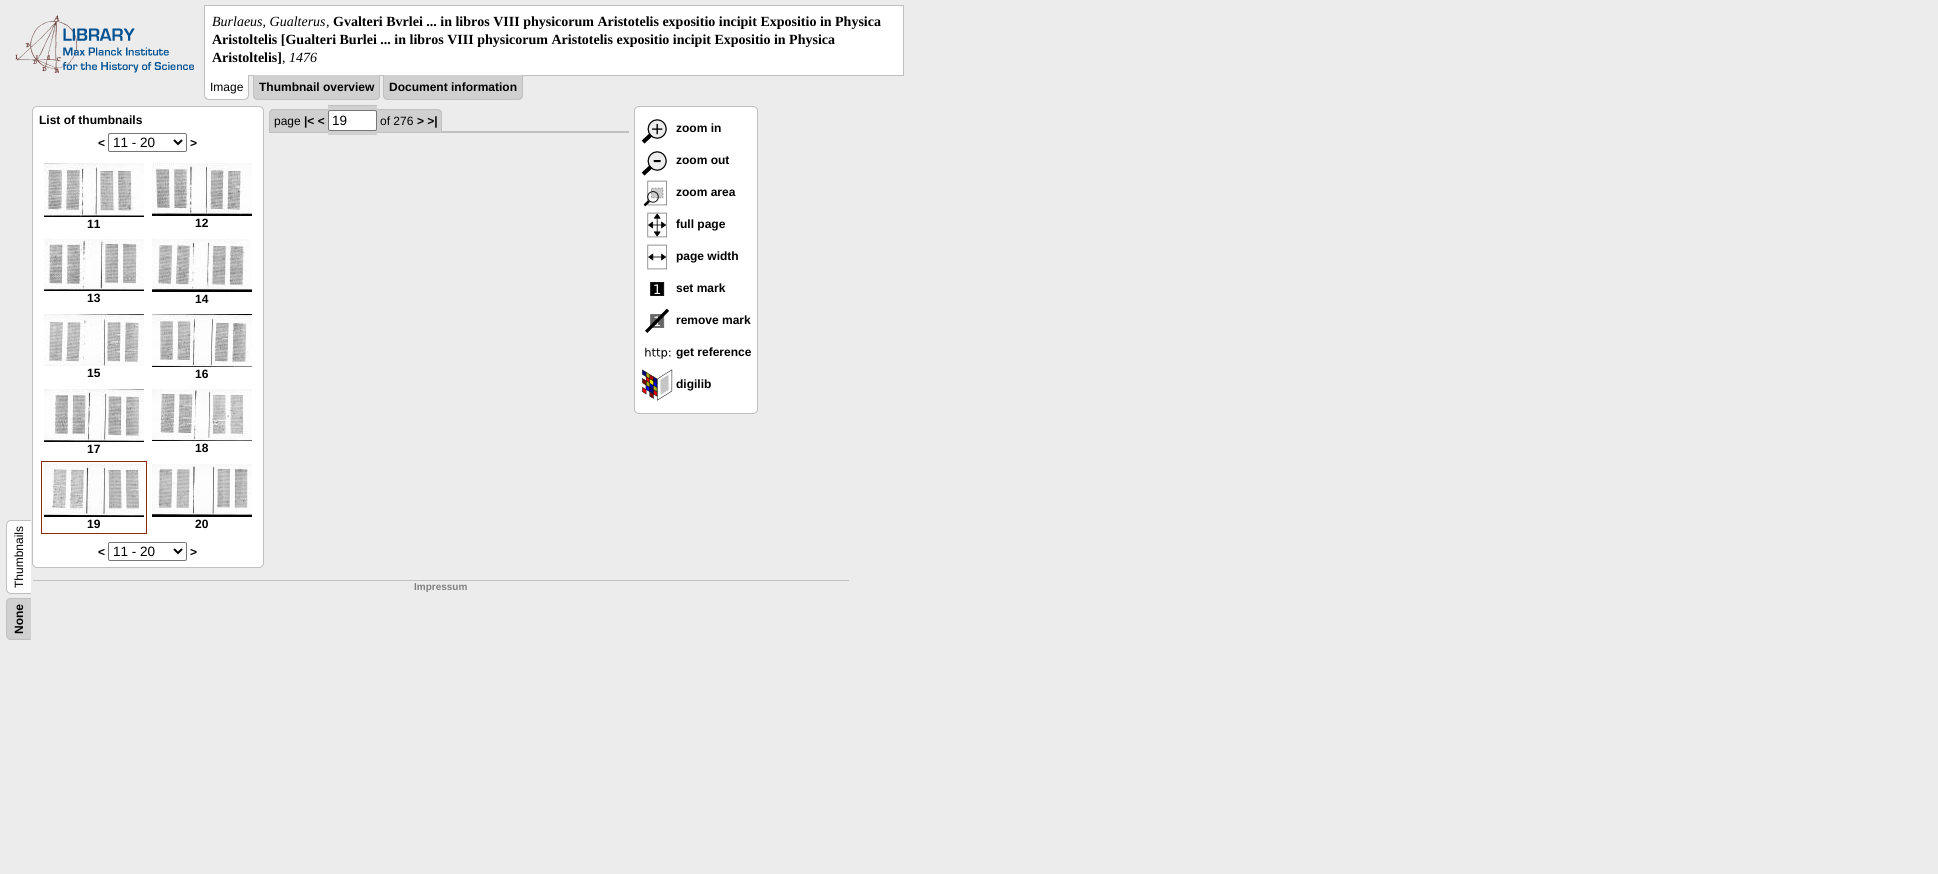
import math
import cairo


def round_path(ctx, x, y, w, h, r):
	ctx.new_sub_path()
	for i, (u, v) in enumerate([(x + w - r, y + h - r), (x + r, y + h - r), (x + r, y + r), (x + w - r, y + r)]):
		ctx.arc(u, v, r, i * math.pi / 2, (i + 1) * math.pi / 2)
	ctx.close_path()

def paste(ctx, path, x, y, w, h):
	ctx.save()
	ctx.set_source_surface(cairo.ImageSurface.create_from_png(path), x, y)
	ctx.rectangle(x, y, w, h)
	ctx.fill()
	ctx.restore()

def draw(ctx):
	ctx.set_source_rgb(0.922, 0.922, 0.922)
	ctx.paint()
	paste(ctx, 'media/1.png', 15, 15, 179, 58)
	ctx.set_source_rgb(1, 1, 1)
	ctx.rectangle(204.5, 5.5, 699, 70)
	ctx.fill_preserve()
	ctx.set_source_rgb(0.753, 0.753, 0.753)
	ctx.set_line_width(1)
	ctx.stroke()
	ctx.select_font_face('Liberation Serif', cairo.FONT_SLANT_ITALIC)
	ctx.set_font_size(14)
	ctx.set_source_rgb(0, 0, 0)
	ctx.move_to(212, 26)
	ctx.show_text('Burlaeus, Gualterus')
	ctx.select_font_face('Liberation Serif')
	ctx.move_to(326, 26)
	ctx.show_text(',')
	ctx.select_font_face('Liberation Serif', cairo.FONT_SLANT_NORMAL, cairo.FONT_WEIGHT_BOLD)
	for x, y, s in [
		(333, 26, 'Gvalteri Bvrlei ... in libros VIII physicorum Aristotelis expositio incipit Expositio in Physica'),
		(212, 44, 'Aristoltelis [Gualteri Burlei ... in libros VIII physicorum Aristotelis expositio incipit Expositio in Physica'),
		(212, 62, 'Aristoltelis]'),
	]:
		ctx.move_to(x, y)
		ctx.show_text(s)
	ctx.select_font_face('Liberation Serif')
	ctx.move_to(282, 62)
	ctx.show_text(',')
	ctx.select_font_face('Liberation Serif', cairo.FONT_SLANT_ITALIC)
	ctx.move_to(289, 62)
	ctx.show_text('1476')
	ctx.set_source_rgb(1, 1, 1)
	ctx.new_path()
	ctx.move_to(204, 75)
	ctx.line_to(249, 75)
	ctx.line_to(249, 95)
	ctx.curve_to(249, 98, 247, 100, 244, 100)
	ctx.line_to(209, 100)
	ctx.curve_to(206, 100, 204, 98, 204, 95)
	ctx.close_path()
	ctx.fill()
	ctx.set_source_rgb(0.753, 0.753, 0.753)
	ctx.set_fill_rule(cairo.FILL_RULE_EVEN_ODD)
	ctx.new_path()
	ctx.move_to(204, 75)
	ctx.line_to(249, 75)
	ctx.line_to(249, 95)
	ctx.curve_to(249, 98, 247, 100, 244, 100)
	ctx.line_to(209, 100)
	ctx.curve_to(206, 100, 204, 98, 204, 95)
	ctx.close_path()
	ctx.move_to(205, 75)
	ctx.line_to(248, 75)
	ctx.line_to(248, 95)
	ctx.curve_to(248, 97, 246, 99, 244, 99)
	ctx.line_to(209, 99)
	ctx.curve_to(207, 99, 205, 97, 205, 95)
	ctx.close_path()
	ctx.fill()
	ctx.select_font_face('Liberation Sans')
	ctx.set_font_size(12)
	ctx.set_source_rgb(0, 0, 0)
	ctx.move_to(210, 91)
	ctx.show_text('Image')
	ctx.set_source_rgb(0.816, 0.816, 0.816)
	ctx.new_path()
	ctx.move_to(253, 75)
	ctx.line_to(380, 75)
	ctx.line_to(380, 95)
	ctx.curve_to(380, 98, 378, 100, 375, 100)
	ctx.line_to(258, 100)
	ctx.curve_to(255, 100, 253, 98, 253, 95)
	ctx.close_path()
	ctx.fill()
	ctx.set_source_rgb(0.753, 0.753, 0.753)
	ctx.new_path()
	ctx.move_to(253, 75)
	ctx.line_to(380, 75)
	ctx.line_to(380, 95)
	ctx.curve_to(380, 98, 378, 100, 375, 100)
	ctx.line_to(258, 100)
	ctx.curve_to(255, 100, 253, 98, 253, 95)
	ctx.close_path()
	ctx.move_to(254, 75)
	ctx.line_to(379, 75)
	ctx.line_to(379, 95)
	ctx.curve_to(379, 97, 377, 99, 375, 99)
	ctx.line_to(258, 99)
	ctx.curve_to(256, 99, 254, 97, 254, 95)
	ctx.close_path()
	ctx.fill()
	ctx.select_font_face('Liberation Sans', cairo.FONT_SLANT_NORMAL, cairo.FONT_WEIGHT_BOLD)
	ctx.set_source_rgb(0, 0, 0)
	ctx.move_to(259, 91)
	ctx.show_text('Thumbnail overview')
	ctx.set_source_rgb(0.816, 0.816, 0.816)
	ctx.new_path()
	ctx.move_to(383, 75)
	ctx.line_to(523, 75)
	ctx.line_to(523, 95)
	ctx.curve_to(523, 98, 521, 100, 518, 100)
	ctx.line_to(388, 100)
	ctx.curve_to(385, 100, 383, 98, 383, 95)
	ctx.close_path()
	ctx.fill()
	ctx.set_source_rgb(0.753, 0.753, 0.753)
	ctx.new_path()
	ctx.move_to(383, 75)
	ctx.line_to(523, 75)
	ctx.line_to(523, 95)
	ctx.curve_to(523, 98, 521, 100, 518, 100)
	ctx.line_to(388, 100)
	ctx.curve_to(385, 100, 383, 98, 383, 95)
	ctx.close_path()
	ctx.move_to(384, 75)
	ctx.line_to(522, 75)
	ctx.line_to(522, 95)
	ctx.curve_to(522, 97, 520, 99, 518, 99)
	ctx.line_to(388, 99)
	ctx.curve_to(386, 99, 384, 97, 384, 95)
	ctx.close_path()
	ctx.fill()
	ctx.set_source_rgb(0, 0, 0)
	ctx.move_to(389, 91)
	ctx.show_text('Document information')
	ctx.set_source_rgb(1, 1, 1)
	round_path(ctx, 32.5, 106.5, 231, 461, 4.5)
	ctx.fill_preserve()
	ctx.set_source_rgb(0.753, 0.753, 0.753)
	ctx.stroke()
	ctx.set_source_rgb(0, 0, 0)
	ctx.move_to(39, 124)
	ctx.show_text('List of thumbnails')
	ctx.move_to(98, 147)
	ctx.show_text('<')
	round_path(ctx, 108.5, 133.5, 78, 18, 1.5)
	ctx.set_source_rgb(0.463, 0.463, 0.463)
	ctx.stroke()
	ctx.new_path()
	ctx.move_to(174, 140)
	ctx.line_to(178, 144)
	ctx.line_to(182, 140)
	ctx.set_source_rgb(0, 0, 0)
	ctx.set_line_width(2)
	ctx.stroke()
	ctx.select_font_face('Liberation Sans')
	ctx.set_font_size(13.5)
	ctx.move_to(113, 147)
	ctx.show_text('11 - 20')
	ctx.select_font_face('Liberation Sans', cairo.FONT_SLANT_NORMAL, cairo.FONT_WEIGHT_BOLD)
	ctx.set_font_size(12)
	ctx.move_to(190, 147)
	ctx.show_text('>')
	paste(ctx, 'media/2.png', 44, 163, 100, 54)
	ctx.move_to(87, 228)
	ctx.show_text('11')
	paste(ctx, 'media/3.png', 152, 163, 100, 53)
	ctx.move_to(195, 227)
	ctx.show_text('12')
	paste(ctx, 'media/4.png', 44, 239, 100, 52)
	ctx.move_to(87, 302)
	ctx.show_text('13')
	paste(ctx, 'media/5.png', 152, 239, 100, 53)
	ctx.move_to(195, 303)
	ctx.show_text('14')
	paste(ctx, 'media/6.png', 44, 314, 100, 52)
	ctx.move_to(87, 377)
	ctx.show_text('15')
	paste(ctx, 'media/7.png', 152, 314, 100, 53)
	ctx.move_to(195, 378)
	ctx.show_text('16')
	paste(ctx, 'media/8.png', 44, 389, 100, 53)
	ctx.move_to(87, 453)
	ctx.show_text('17')
	paste(ctx, 'media/9.png', 152, 389, 100, 52)
	ctx.move_to(195, 452)
	ctx.show_text('18')
	ctx.rectangle(41.5, 461.5, 105, 72)
	ctx.set_source_rgb(0.537, 0.169, 0.024)
	ctx.set_line_width(1)
	ctx.stroke()
	paste(ctx, 'media/10.png', 44, 464, 100, 53)
	ctx.set_source_rgb(0, 0, 0)
	ctx.move_to(87, 528)
	ctx.show_text('19')
	paste(ctx, 'media/11.png', 152, 464, 100, 53)
	ctx.move_to(195, 528)
	ctx.show_text('20')
	ctx.move_to(98, 556)
	ctx.show_text('<')
	round_path(ctx, 108.5, 542.5, 78, 18, 1.5)
	ctx.set_source_rgb(0.463, 0.463, 0.463)
	ctx.stroke()
	ctx.new_path()
	ctx.move_to(174, 549)
	ctx.line_to(178, 553)
	ctx.line_to(182, 549)
	ctx.set_source_rgb(0, 0, 0)
	ctx.set_line_width(2)
	ctx.stroke()
	ctx.select_font_face('Liberation Sans')
	ctx.set_font_size(13.5)
	ctx.move_to(113, 556)
	ctx.show_text('11 - 20')
	ctx.select_font_face('Liberation Sans', cairo.FONT_SLANT_NORMAL, cairo.FONT_WEIGHT_BOLD)
	ctx.set_font_size(12)
	ctx.move_to(190, 556)
	ctx.show_text('>')
	ctx.set_source_rgb(1, 1, 1)
	ctx.set_fill_rule(cairo.FILL_RULE_WINDING)
	ctx.new_path()
	ctx.move_to(6, 589)
	ctx.line_to(6, 525)
	ctx.curve_to(6, 522, 8, 520, 11, 520)
	ctx.line_to(31, 520)
	ctx.line_to(31, 594)
	ctx.line_to(11, 594)
	ctx.curve_to(8, 594, 6, 592, 6, 589)
	ctx.close_path()
	ctx.fill()
	ctx.set_source_rgb(0.753, 0.753, 0.753)
	ctx.set_fill_rule(cairo.FILL_RULE_EVEN_ODD)
	ctx.new_path()
	ctx.move_to(6, 589)
	ctx.line_to(6, 525)
	ctx.curve_to(6, 522, 8, 520, 11, 520)
	ctx.line_to(31, 520)
	ctx.line_to(31, 594)
	ctx.line_to(11, 594)
	ctx.curve_to(8, 594, 6, 592, 6, 589)
	ctx.close_path()
	ctx.move_to(7, 589)
	ctx.line_to(7, 525)
	ctx.curve_to(7, 523, 9, 521, 11, 521)
	ctx.line_to(31, 521)
	ctx.line_to(31, 593)
	ctx.line_to(11, 593)
	ctx.curve_to(9, 593, 7, 591, 7, 589)
	ctx.close_path()
	ctx.fill()
	ctx.select_font_face('Liberation Sans')
	ctx.set_source_rgb(0, 0, 0)
	ctx.save()
	ctx.translate(23, 588)
	ctx.rotate(-90 * math.pi / 180)
	ctx.move_to(0, 0)
	ctx.show_text('Thumbnails')
	ctx.restore()
	ctx.set_source_rgb(0.816, 0.816, 0.816)
	ctx.set_fill_rule(cairo.FILL_RULE_WINDING)
	ctx.new_path()
	ctx.move_to(6, 635)
	ctx.line_to(6, 603)
	ctx.curve_to(6, 600, 8, 598, 11, 598)
	ctx.line_to(31, 598)
	ctx.line_to(31, 640)
	ctx.line_to(11, 640)
	ctx.curve_to(8, 640, 6, 637, 6, 635)
	ctx.close_path()
	ctx.fill()
	ctx.set_source_rgb(0.753, 0.753, 0.753)
	ctx.set_fill_rule(cairo.FILL_RULE_EVEN_ODD)
	ctx.new_path()
	ctx.move_to(6, 635)
	ctx.line_to(6, 603)
	ctx.curve_to(6, 600, 8, 598, 11, 598)
	ctx.line_to(31, 598)
	ctx.line_to(31, 640)
	ctx.line_to(11, 640)
	ctx.curve_to(8, 640, 6, 637, 6, 635)
	ctx.close_path()
	ctx.move_to(7, 635)
	ctx.line_to(7, 603)
	ctx.curve_to(7, 600, 9, 599, 11, 599)
	ctx.line_to(31, 599)
	ctx.line_to(31, 639)
	ctx.line_to(11, 639)
	ctx.curve_to(9, 639, 7, 637, 7, 635)
	ctx.close_path()
	ctx.fill()
	ctx.select_font_face('Liberation Sans', cairo.FONT_SLANT_NORMAL, cairo.FONT_WEIGHT_BOLD)
	ctx.set_source_rgb(0, 0, 0)
	ctx.save()
	ctx.translate(23, 634)
	ctx.rotate(-90 * math.pi / 180)
	ctx.move_to(0, 0)
	ctx.show_text('None')
	ctx.restore()
	ctx.set_source_rgb(0.753, 0.753, 0.753)
	ctx.rectangle(269, 131, 360, 2)
	ctx.fill()
	ctx.set_source_rgb(0.816, 0.816, 0.816)
	ctx.new_path()
	ctx.move_to(274, 109)
	ctx.line_to(304, 109)
	ctx.line_to(304, 132)
	ctx.line_to(269, 132)
	ctx.line_to(269, 114)
	ctx.curve_to(269, 111, 271, 109, 274, 109)
	ctx.close_path()
	ctx.fill()
	ctx.set_source_rgb(0.753, 0.753, 0.753)
	ctx.new_path()
	ctx.move_to(274, 109)
	ctx.line_to(304, 109)
	ctx.line_to(304, 132)
	ctx.line_to(269, 132)
	ctx.line_to(269, 114)
	ctx.curve_to(269, 111, 271, 109, 274, 109)
	ctx.close_path()
	ctx.move_to(274, 110)
	ctx.line_to(304, 110)
	ctx.line_to(304, 132)
	ctx.line_to(270, 132)
	ctx.line_to(270, 114)
	ctx.curve_to(270, 112, 272, 110, 274, 110)
	ctx.close_path()
	ctx.fill()
	ctx.set_source_rgb(0.816, 0.816, 0.816)
	ctx.rectangle(304, 110, 10, 22)
	ctx.fill()
	ctx.set_source_rgb(0.753, 0.753, 0.753)
	ctx.rectangle(304, 109, 10, 1)
	ctx.fill()
	ctx.set_source_rgb(0.816, 0.816, 0.816)
	ctx.rectangle(314, 109, 14, 23)
	ctx.fill()
	ctx.set_source_rgb(0.753, 0.753, 0.753)
	ctx.rectangle(314, 109, 14, 1)
	ctx.fill()
	ctx.set_source_rgb(0.816, 0.816, 0.816)
	ctx.rectangle(328, 106, 49, 29)
	ctx.fill()
	ctx.set_source_rgb(0.753, 0.753, 0.753)
	ctx.rectangle(328, 105, 49, 1)
	ctx.fill()
	ctx.set_source_rgb(0.816, 0.816, 0.816)
	ctx.rectangle(377, 109, 3, 23)
	ctx.fill()
	ctx.set_source_rgb(0.753, 0.753, 0.753)
	ctx.rectangle(377, 109, 40, 1)
	ctx.fill()
	ctx.set_source_rgb(0.816, 0.816, 0.816)
	ctx.rectangle(380, 110, 37, 22)
	ctx.rectangle(417, 109, 10, 23)
	ctx.fill()
	ctx.set_source_rgb(0.753, 0.753, 0.753)
	ctx.rectangle(417, 109, 10, 1)
	ctx.fill()
	ctx.set_source_rgb(0.816, 0.816, 0.816)
	ctx.new_path()
	ctx.move_to(427, 109)
	ctx.line_to(437, 109)
	ctx.curve_to(440, 109, 442, 111, 442, 114)
	ctx.line_to(442, 132)
	ctx.line_to(427, 132)
	ctx.close_path()
	ctx.fill()
	ctx.set_source_rgb(0.753, 0.753, 0.753)
	ctx.new_path()
	ctx.move_to(427, 109)
	ctx.line_to(437, 109)
	ctx.curve_to(440, 109, 442, 111, 442, 114)
	ctx.line_to(442, 132)
	ctx.line_to(427, 132)
	ctx.close_path()
	ctx.move_to(427, 110)
	ctx.line_to(437, 110)
	ctx.curve_to(439, 110, 441, 112, 441, 114)
	ctx.line_to(441, 132)
	ctx.line_to(427, 132)
	ctx.close_path()
	ctx.fill()
	ctx.select_font_face('Liberation Sans')
	ctx.set_source_rgb(0, 0, 0)
	ctx.move_to(274, 125)
	ctx.show_text('page')
	ctx.select_font_face('Liberation Sans', cairo.FONT_SLANT_NORMAL, cairo.FONT_WEIGHT_BOLD)
	ctx.move_to(304, 125)
	ctx.show_text('|< <')
	ctx.set_source_rgb(1, 1, 1)
	round_path(ctx, 328.5, 110.5, 48, 20, 1.5)
	ctx.fill_preserve()
	ctx.set_source_rgb(0.463, 0.463, 0.463)
	ctx.set_line_width(1)
	ctx.stroke()
	ctx.select_font_face('Liberation Sans')
	ctx.set_font_size(13.5)
	ctx.set_source_rgb(0, 0, 0)
	ctx.move_to(332, 125)
	ctx.show_text('19')
	ctx.set_font_size(12)
	ctx.move_to(380, 125)
	ctx.show_text('of 276')
	ctx.select_font_face('Liberation Sans', cairo.FONT_SLANT_NORMAL, cairo.FONT_WEIGHT_BOLD)
	ctx.move_to(417, 125)
	ctx.show_text('> >|')
	ctx.set_source_rgb(1, 1, 1)
	round_path(ctx, 634.5, 106.5, 123, 307, 4.5)
	ctx.fill_preserve()
	ctx.set_source_rgb(0.753, 0.753, 0.753)
	ctx.stroke()
	paste(ctx, 'media/12.png', 641, 119, 26, 25)
	ctx.set_source_rgb(0, 0, 0)
	ctx.move_to(676, 132)
	ctx.show_text('zoom in')
	paste(ctx, 'media/13.png', 641, 151, 26, 25)
	ctx.move_to(676, 164)
	ctx.show_text('zoom out')
	paste(ctx, 'media/14.png', 643, 180, 24, 27)
	ctx.move_to(676, 196)
	ctx.show_text('zoom area')
	paste(ctx, 'media/15.png', 647, 212, 20, 26)
	ctx.move_to(676, 228)
	ctx.show_text('full page')
	paste(ctx, 'media/16.png', 647, 244, 20, 26)
	ctx.move_to(676, 260)
	ctx.show_text('page width')
	paste(ctx, 'media/17.png', 650, 282, 15, 14)
	ctx.move_to(676, 292)
	ctx.show_text('set mark')
	paste(ctx, 'media/18.png', 645, 308, 24, 25)
	ctx.move_to(676, 324)
	ctx.show_text('remove mark')
	paste(ctx, 'media/19.png', 645, 347, 26, 12)
	ctx.move_to(676, 356)
	ctx.show_text('get reference')
	paste(ctx, 'media/20.png', 642, 369, 31, 32)
	ctx.move_to(676, 388)
	ctx.show_text('digilib')
	ctx.set_source_rgb(0.753, 0.753, 0.753)
	ctx.rectangle(33, 580, 816, 1)
	ctx.fill()
	ctx.set_font_size(10)
	ctx.set_source_rgb(0.502, 0.502, 0.502)
	ctx.move_to(414, 590)
	ctx.show_text('Impressum')


surface = cairo.ImageSurface(cairo.FORMAT_RGB24, 1938, 874)
ctx = cairo.Context(surface)
options = cairo.FontOptions()
options.set_hint_metrics(cairo.HINT_METRICS_OFF)
options.set_hint_style(cairo.HINT_STYLE_NONE)
ctx.set_font_options(options)
ctx.set_miter_limit(4)
draw(ctx)
surface.write_to_png('image.png')
